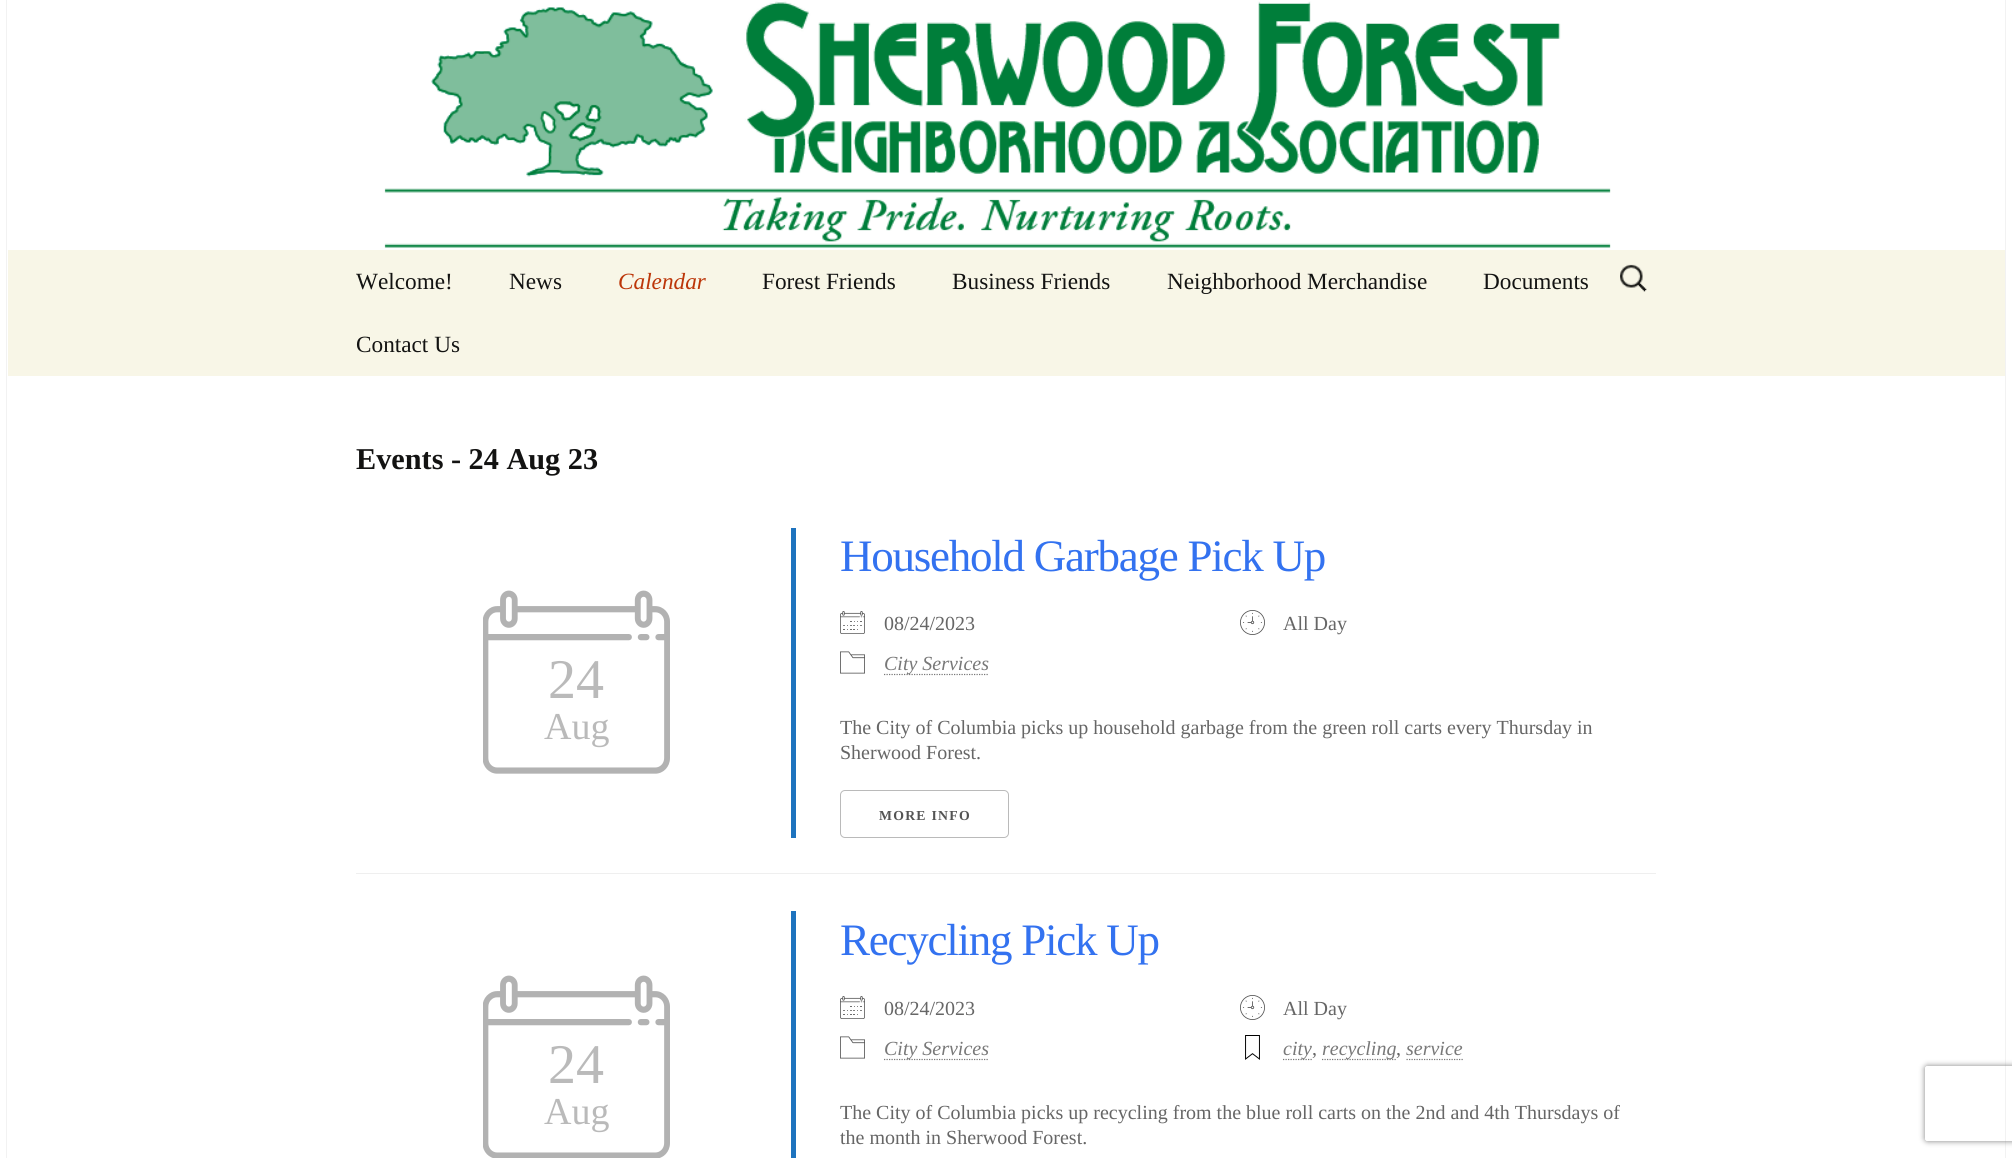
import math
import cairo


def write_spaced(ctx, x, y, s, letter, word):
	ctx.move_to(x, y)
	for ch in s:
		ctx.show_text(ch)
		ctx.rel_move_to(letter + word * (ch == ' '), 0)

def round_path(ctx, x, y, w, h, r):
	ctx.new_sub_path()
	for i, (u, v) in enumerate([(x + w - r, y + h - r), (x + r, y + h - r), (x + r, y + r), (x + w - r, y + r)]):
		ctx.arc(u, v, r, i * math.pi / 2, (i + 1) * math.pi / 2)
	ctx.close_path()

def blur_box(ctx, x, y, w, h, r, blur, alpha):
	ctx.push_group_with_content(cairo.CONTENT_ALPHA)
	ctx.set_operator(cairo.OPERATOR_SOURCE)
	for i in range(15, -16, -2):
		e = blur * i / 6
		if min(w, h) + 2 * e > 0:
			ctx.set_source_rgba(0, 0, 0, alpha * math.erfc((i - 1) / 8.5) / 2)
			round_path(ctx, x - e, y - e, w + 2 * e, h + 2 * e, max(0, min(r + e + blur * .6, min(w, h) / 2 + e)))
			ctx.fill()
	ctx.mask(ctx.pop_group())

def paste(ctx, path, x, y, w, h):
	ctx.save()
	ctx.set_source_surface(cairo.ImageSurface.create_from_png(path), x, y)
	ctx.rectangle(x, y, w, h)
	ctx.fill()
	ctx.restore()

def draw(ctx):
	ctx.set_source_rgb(1, 1, 1)
	ctx.paint()
	ctx.set_source_rgb(0.949, 0.949, 0.949)
	ctx.rectangle(2005, 0, 1, 1158)
	ctx.fill()
	ctx.rectangle(6, 0, 1, 1158)
	ctx.fill()
	paste(ctx, 'media/1.png', 384, 1, 1227, 249)
	ctx.set_source_rgb(0.969, 0.961, 0.906)
	ctx.rectangle(8, 250, 1997, 126)
	ctx.fill()
	ctx.select_font_face('Liberation Serif')
	ctx.set_font_size(23.25)
	ctx.set_source_rgb(0.078, 0.078, 0.071)
	ctx.move_to(356, 289)
	ctx.show_text('Welcome!')
	ctx.move_to(509, 289)
	ctx.show_text('News')
	ctx.select_font_face('Liberation Serif', cairo.FONT_SLANT_ITALIC)
	ctx.set_source_rgb(0.737, 0.212, 0.039)
	ctx.move_to(618, 289)
	ctx.show_text('Calendar')
	ctx.select_font_face('Liberation Serif')
	ctx.set_source_rgb(0.078, 0.078, 0.071)
	for x, y, s in [
		(762, 289, 'Forest Friends'),
		(952, 289, 'Business Friends'),
		(1167, 289, 'Neighborhood Merchandise'),
		(1483, 289, 'Documents'),
		(356, 352, 'Contact Us'),
	]:
		ctx.move_to(x, y)
		ctx.show_text(s)
	paste(ctx, 'media/2.png', 1620, 264, 27, 28)
	ctx.select_font_face('Liberation Serif', cairo.FONT_SLANT_NORMAL, cairo.FONT_WEIGHT_BOLD)
	ctx.set_font_size(30.25)
	ctx.move_to(356, 469)
	ctx.show_text('Events - 24 Aug 23')
	paste(ctx, 'media/3.png', 483, 590, 187, 184)
	ctx.select_font_face('Liberation Serif')
	ctx.set_font_size(56)
	ctx.set_source_rgb(0.729, 0.729, 0.729)
	ctx.move_to(548, 698)
	ctx.show_text('24')
	ctx.set_font_size(38)
	ctx.move_to(544, 739)
	ctx.show_text('Aug')
	ctx.set_source_rgb(0.118, 0.451, 0.745)
	ctx.rectangle(791, 528, 5, 310)
	ctx.fill()
	ctx.set_font_size(45)
	ctx.set_source_rgb(0.2, 0.447, 0.941)
	write_spaced(ctx, 840, 571, 'Household Garbage Pick Up', -1.25, 0)
	paste(ctx, 'media/4.png', 840, 611, 25, 23)
	ctx.set_font_size(20)
	ctx.set_source_rgb(0.4, 0.4, 0.4)
	ctx.move_to(884, 630)
	ctx.show_text('08/24/2023')
	paste(ctx, 'media/5.png', 1240, 610, 25, 25)
	ctx.move_to(1283, 630)
	ctx.show_text('All Day')
	paste(ctx, 'media/6.png', 840, 651, 25, 23)
	ctx.new_path()
	ctx.move_to(884, 674.5)
	ctx.line_to(988.5, 674.5)
	ctx.set_source_rgb(0.471, 0.471, 0.471)
	ctx.set_line_width(1.2)
	ctx.set_dash([1.25, 1.25])
	ctx.stroke()
	ctx.select_font_face('Liberation Serif', cairo.FONT_SLANT_ITALIC)
	ctx.move_to(884, 670)
	ctx.show_text('City Services')
	ctx.select_font_face('Liberation Serif')
	ctx.set_source_rgb(0.4, 0.4, 0.4)
	ctx.move_to(840, 734)
	ctx.show_text('The City of Columbia picks up household garbage from the green roll carts every Thursday in')
	ctx.move_to(840, 759)
	ctx.show_text('Sherwood Forest.')
	round_path(ctx, 840.5, 790.5, 168, 47, 4.5)
	ctx.set_source_rgb(0.729, 0.729, 0.729)
	ctx.set_line_width(1)
	ctx.set_dash([])
	ctx.stroke()
	ctx.select_font_face('Liberation Serif', cairo.FONT_SLANT_NORMAL, cairo.FONT_WEIGHT_BOLD)
	ctx.set_font_size(13.75)
	ctx.set_source_rgb(0.329, 0.329, 0.329)
	write_spaced(ctx, 879, 820, 'MORE INFO', 1.25, 0)
	ctx.set_source_rgb(0.937, 0.937, 0.937)
	ctx.rectangle(356, 873, 1300, 1)
	ctx.fill()
	paste(ctx, 'media/7.png', 483, 975, 187, 183)
	ctx.select_font_face('Liberation Serif')
	ctx.set_font_size(56)
	ctx.set_source_rgb(0.729, 0.729, 0.729)
	ctx.move_to(548, 1083)
	ctx.show_text('24')
	ctx.set_font_size(38)
	ctx.move_to(544, 1124)
	ctx.show_text('Aug')
	ctx.set_source_rgb(0.118, 0.451, 0.745)
	ctx.rectangle(791, 911, 5, 247)
	ctx.fill()
	ctx.set_font_size(45)
	ctx.set_source_rgb(0.2, 0.447, 0.941)
	write_spaced(ctx, 840, 955, 'Recycling Pick Up', -1.25, 0)
	paste(ctx, 'media/4.png', 840, 996, 25, 23)
	ctx.set_font_size(20)
	ctx.set_source_rgb(0.4, 0.4, 0.4)
	ctx.move_to(884, 1015)
	ctx.show_text('08/24/2023')
	paste(ctx, 'media/5.png', 1240, 995, 25, 25)
	ctx.move_to(1283, 1015)
	ctx.show_text('All Day')
	paste(ctx, 'media/6.png', 840, 1036, 25, 23)
	ctx.new_path()
	ctx.move_to(884, 1059.5)
	ctx.line_to(988.5, 1059.5)
	ctx.set_source_rgb(0.471, 0.471, 0.471)
	ctx.set_line_width(1.2)
	ctx.set_dash([1.25, 1.25])
	ctx.stroke()
	ctx.select_font_face('Liberation Serif', cairo.FONT_SLANT_ITALIC)
	ctx.move_to(884, 1055)
	ctx.show_text('City Services')
	paste(ctx, 'media/8.png', 1245, 1035, 15, 25)
	ctx.new_path()
	ctx.move_to(1283, 1059.5)
	ctx.line_to(1312, 1059.5)
	ctx.stroke()
	ctx.move_to(1283, 1055)
	ctx.show_text('city')
	ctx.select_font_face('Liberation Serif')
	ctx.set_source_rgb(0.4, 0.4, 0.4)
	ctx.move_to(1312, 1055)
	ctx.show_text(',')
	ctx.new_path()
	ctx.move_to(1322, 1059.5)
	ctx.line_to(1396.5, 1059.5)
	ctx.set_source_rgb(0.471, 0.471, 0.471)
	ctx.stroke()
	ctx.select_font_face('Liberation Serif', cairo.FONT_SLANT_ITALIC)
	ctx.move_to(1322, 1055)
	ctx.show_text('recycling')
	ctx.select_font_face('Liberation Serif')
	ctx.set_source_rgb(0.4, 0.4, 0.4)
	ctx.move_to(1396, 1055)
	ctx.show_text(',')
	ctx.select_font_face('Liberation Serif', cairo.FONT_SLANT_ITALIC)
	ctx.set_source_rgb(0.471, 0.471, 0.471)
	ctx.move_to(1406, 1055)
	ctx.show_text('service')
	ctx.new_path()
	ctx.move_to(1406.5, 1059.5)
	ctx.line_to(1463, 1059.5)
	ctx.stroke()
	ctx.select_font_face('Liberation Serif')
	ctx.set_source_rgb(0.4, 0.4, 0.4)
	ctx.move_to(840, 1119)
	ctx.show_text('The City of Columbia picks up recycling from the blue roll carts on the 2nd and 4th Thursdays of')
	ctx.move_to(840, 1144)
	ctx.show_text('the month in Sherwood Forest.')
	ctx.save()
	ctx.set_fill_rule(cairo.FILL_RULE_EVEN_ODD)
	ctx.new_path()
	ctx.move_to(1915, 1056)
	ctx.line_to(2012, 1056)
	ctx.line_to(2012, 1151)
	ctx.line_to(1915, 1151)
	ctx.close_path()
	ctx.move_to(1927.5, 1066)
	ctx.line_to(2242.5, 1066)
	ctx.curve_to(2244, 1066, 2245, 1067, 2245, 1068.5)
	ctx.line_to(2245, 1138.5)
	ctx.curve_to(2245, 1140, 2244, 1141, 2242.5, 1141)
	ctx.line_to(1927.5, 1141)
	ctx.curve_to(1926, 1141, 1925, 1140, 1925, 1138.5)
	ctx.line_to(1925, 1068.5)
	ctx.curve_to(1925, 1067, 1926, 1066, 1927.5, 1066)
	ctx.close_path()
	ctx.clip()
	ctx.set_source_rgb(0.502, 0.502, 0.502)
	blur_box(ctx, 1925, 1066, 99, 75, 2.5, 3, 1)
	ctx.restore()


surface = cairo.ImageSurface(cairo.FORMAT_RGB24, 2012, 1158)
ctx = cairo.Context(surface)
options = cairo.FontOptions()
options.set_hint_metrics(cairo.HINT_METRICS_OFF)
options.set_hint_style(cairo.HINT_STYLE_NONE)
ctx.set_font_options(options)
ctx.set_miter_limit(4)
draw(ctx)
surface.write_to_png('image.png')
